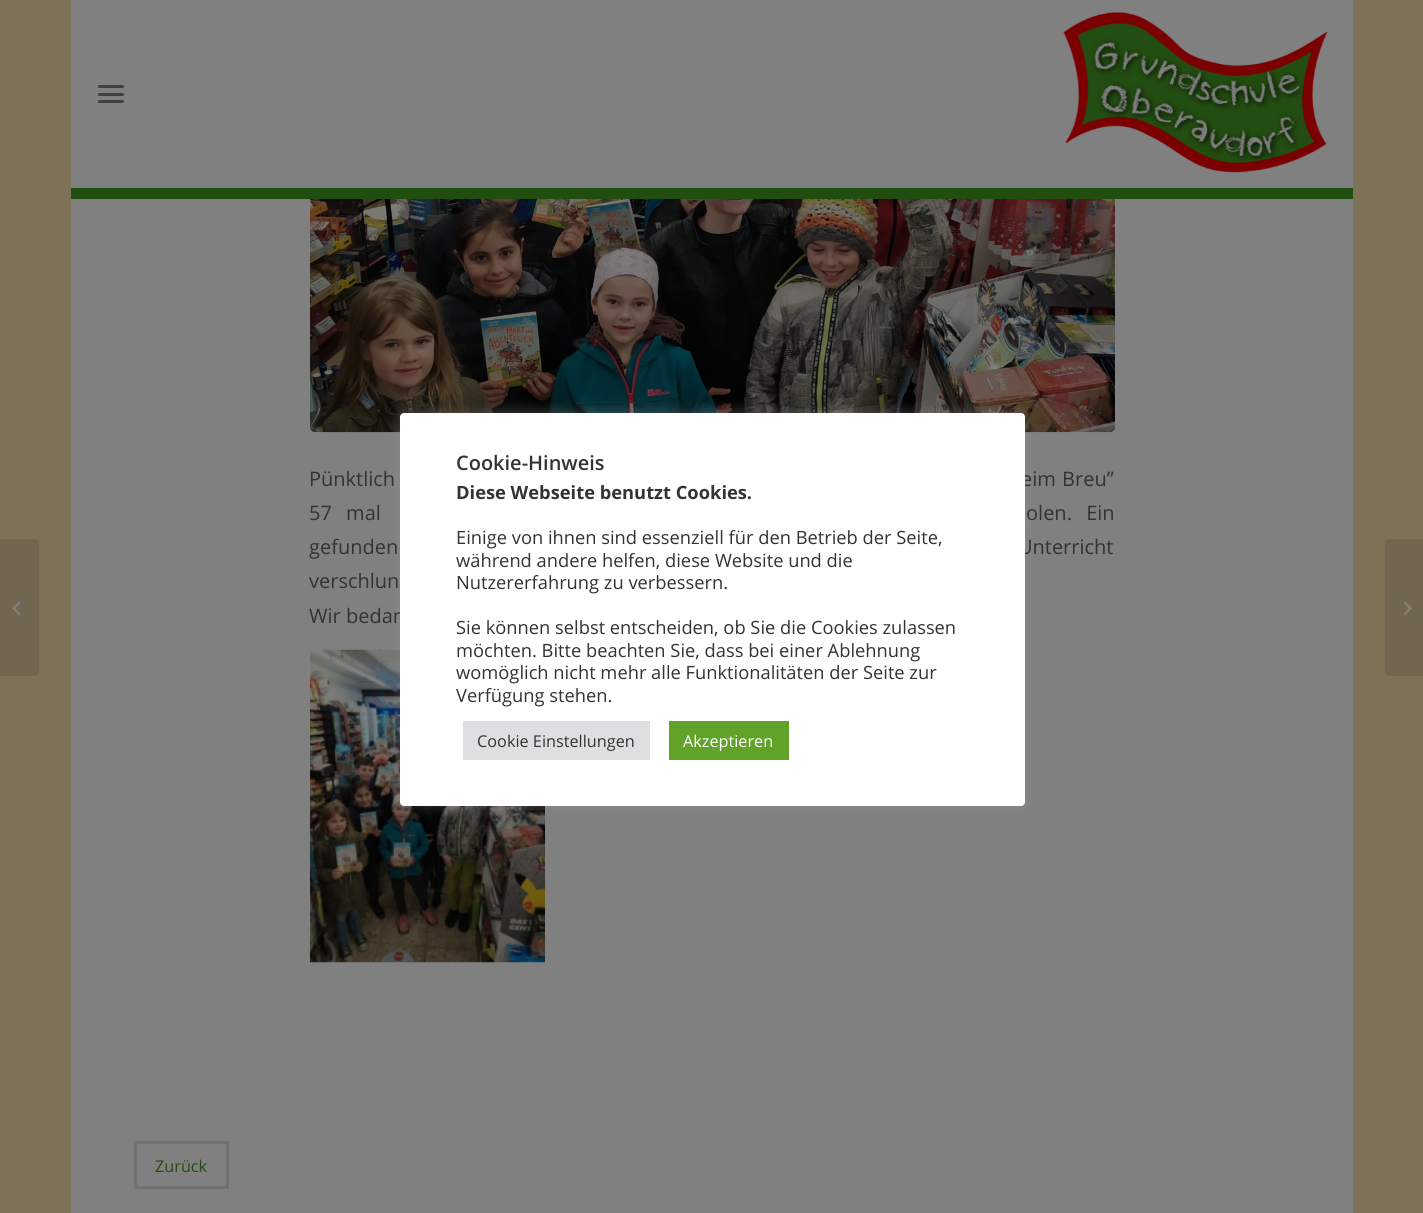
import math
import cairo


def write_spaced(ctx, x, y, s, letter, word):
	ctx.move_to(x, y)
	for ch in s:
		ctx.show_text(ch)
		ctx.rel_move_to(letter + word * (ch == ' '), 0)

def round_path(ctx, x, y, w, h, r):
	ctx.new_sub_path()
	for i, (u, v) in enumerate([(x + w - r, y + h - r), (x + r, y + h - r), (x + r, y + r), (x + w - r, y + r)]):
		ctx.arc(u, v, r, i * math.pi / 2, (i + 1) * math.pi / 2)
	ctx.close_path()

def blur_box(ctx, x, y, w, h, r, blur, alpha):
	ctx.push_group_with_content(cairo.CONTENT_ALPHA)
	ctx.set_operator(cairo.OPERATOR_SOURCE)
	for i in range(15, -16, -2):
		e = blur * i / 6
		if min(w, h) + 2 * e > 0:
			ctx.set_source_rgba(0, 0, 0, alpha * math.erfc((i - 1) / 8.5) / 2)
			round_path(ctx, x - e, y - e, w + 2 * e, h + 2 * e, max(0, min(r + e + blur * .6, min(w, h) / 2 + e)))
			ctx.fill()
	ctx.mask(ctx.pop_group())

def paste(ctx, path, x, y, w, h):
	ctx.save()
	ctx.set_source_surface(cairo.ImageSurface.create_from_png(path), x, y)
	ctx.rectangle(x, y, w, h)
	ctx.fill()
	ctx.restore()

def draw(ctx):
	ctx.set_source_rgb(0.49, 0.443, 0.345)
	ctx.paint()
	ctx.set_source_rgb(0.502, 0.502, 0.502)
	ctx.rectangle(71, 199, 1282, 1014)
	ctx.fill()
	paste(ctx, 'media/3.png', 310, 199, 805, 234)
	paste(ctx, 'media/4.png', 310, 649, 235, 314)
	ctx.set_source_rgb(0.675, 0.671, 0.671)
	blur_box(ctx, 400, 411, 625, 394, 4, 6, 0.3)
	ctx.select_font_face('Open Sans')
	ctx.set_font_size(20)
	ctx.set_source_rgb(0.2, 0.2, 0.2)
	write_spaced(ctx, 1021, 486, 'eim Breu”', 0, 1)
	write_spaced(ctx, 1018, 554, 'Unterricht', 0, 14)
	ctx.move_to(309, 623)
	ctx.show_text('Wir bedan')
	ctx.set_source_rgb(1, 1, 1)
	round_path(ctx, 400, 413, 625, 393, 4)
	ctx.fill()
	ctx.select_font_face('Open Sans SemiBold')
	ctx.set_source_rgb(0.2, 0.2, 0.2)
	ctx.move_to(456, 470)
	ctx.show_text('Cookie-Hinweis')
	ctx.select_font_face('Open Sans', cairo.FONT_SLANT_NORMAL, cairo.FONT_WEIGHT_BOLD)
	ctx.set_font_size(18.3)
	ctx.move_to(456, 499)
	ctx.show_text('Diese Webseite benutzt Cookies.')
	ctx.select_font_face('Open Sans')
	for x, y, s in [
		(456, 544, 'Einige von ihnen sind essenziell für den Betrieb der Seite,'),
		(456, 567, 'während andere helfen, diese Website und die'),
		(456, 589, 'Nutzererfahrung zu verbessern.'),
		(456, 634, 'Sie können selbst entscheiden, ob Sie die Cookies zulassen'),
		(456, 657, 'möchten. Bitte beachten Sie, dass bei einer Ablehnung'),
		(456, 679, 'womöglich nicht mehr alle Funktionalitäten der Seite zur'),
		(456, 702, 'Verfügung stehen.'),
	]:
		ctx.move_to(x, y)
		ctx.show_text(s)
	ctx.set_source_rgb(0.871, 0.875, 0.878)
	ctx.rectangle(463, 721, 187, 39)
	ctx.fill()
	ctx.set_font_size(16.25)
	ctx.set_source_rgb(0.2, 0.2, 0.2)
	ctx.move_to(477, 747)
	ctx.show_text('Cookie Einstellungen')
	ctx.set_source_rgb(0.38, 0.635, 0.161)
	ctx.rectangle(669, 721, 120, 39)
	ctx.fill()
	ctx.set_source_rgb(1, 1, 1)
	ctx.move_to(683, 747)
	ctx.show_text('Akzeptieren')
	ctx.set_source_rgb(0.133, 0.302, 0.067)
	ctx.rectangle(71, 188, 1282, 11)
	ctx.fill()
	ctx.set_source_rgb(0.502, 0.502, 0.502)
	ctx.rectangle(71, 0, 1282, 188)
	ctx.fill()
	ctx.set_source_rgb(0.251, 0.251, 0.251)
	round_path(ctx, 98, 93, 26, 3, 1.5)
	ctx.fill()
	round_path(ctx, 98, 85, 26, 3, 1.5)
	ctx.fill()
	round_path(ctx, 98, 100, 26, 3, 1.5)
	ctx.fill()
	paste(ctx, 'media/1.png', 1063, 12, 265, 161)
	ctx.set_source_rgb(0.443, 0.4, 0.31)
	ctx.new_path()
	ctx.move_to(0, 539)
	ctx.line_to(34, 539)
	ctx.curve_to(37, 539, 39, 541, 39, 544)
	ctx.line_to(39, 671)
	ctx.curve_to(39, 674, 37, 676, 34, 676)
	ctx.line_to(0, 676)
	ctx.close_path()
	ctx.fill()
	paste(ctx, 'media/2.png', 12, 601, 9, 15)
	ctx.set_font_size(20)
	ctx.set_source_rgb(0.2, 0.2, 0.2)
	write_spaced(ctx, 309, 486, 'Pünktlich', 0, 1)
	write_spaced(ctx, 309, 520, '57 mal', 0, 9)
	write_spaced(ctx, 1026, 520, 'olen. Ein', 0, 9)
	write_spaced(ctx, 309, 554, 'gefunden', 0, 14)
	ctx.move_to(309, 588)
	ctx.show_text('verschlun')
	ctx.rectangle(135.5, 1142.5, 92, 45)
	ctx.set_source_rgb(0.443, 0.443, 0.443)
	ctx.set_line_width(3)
	ctx.stroke()
	ctx.set_font_size(16.25)
	ctx.set_source_rgb(0.133, 0.302, 0.067)
	ctx.move_to(155, 1172)
	ctx.show_text('Zurück')
	ctx.set_source_rgb(0.443, 0.4, 0.31)
	ctx.new_path()
	ctx.move_to(1390, 539)
	ctx.line_to(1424, 539)
	ctx.line_to(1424, 676)
	ctx.line_to(1390, 676)
	ctx.curve_to(1387, 676, 1385, 674, 1385, 671)
	ctx.line_to(1385, 544)
	ctx.curve_to(1385, 541, 1387, 539, 1390, 539)
	ctx.close_path()
	ctx.fill()
	paste(ctx, 'media/5.png', 1403, 601, 9, 15)


surface = cairo.ImageSurface(cairo.FORMAT_RGB24, 1423, 1213)
ctx = cairo.Context(surface)
options = cairo.FontOptions()
options.set_hint_metrics(cairo.HINT_METRICS_OFF)
options.set_hint_style(cairo.HINT_STYLE_NONE)
ctx.set_font_options(options)
ctx.set_miter_limit(4)
draw(ctx)
surface.write_to_png('image.png')
